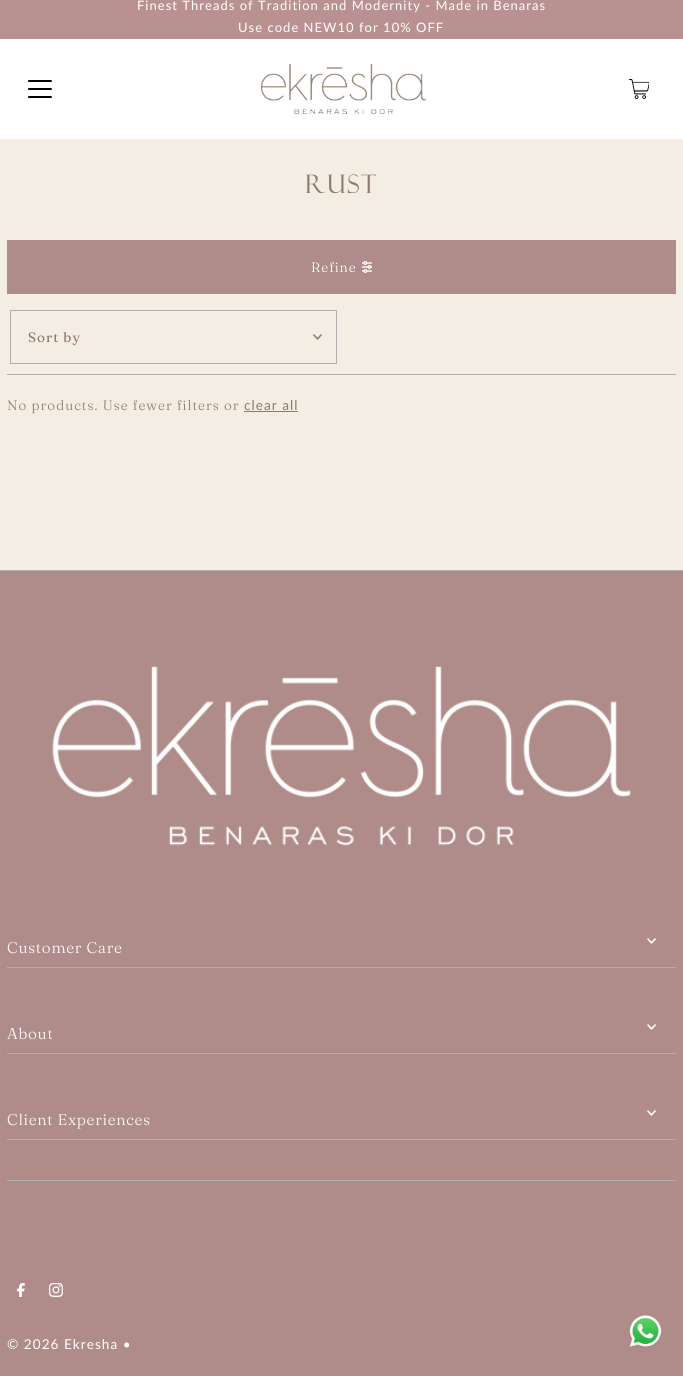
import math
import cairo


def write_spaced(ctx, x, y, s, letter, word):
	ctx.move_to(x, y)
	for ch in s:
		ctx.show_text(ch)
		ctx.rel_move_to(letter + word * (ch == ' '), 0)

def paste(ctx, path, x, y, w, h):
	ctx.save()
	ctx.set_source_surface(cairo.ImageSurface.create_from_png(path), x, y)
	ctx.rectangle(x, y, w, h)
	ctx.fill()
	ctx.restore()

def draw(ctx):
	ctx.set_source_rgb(0.957, 0.929, 0.89)
	ctx.paint()
	ctx.set_source_rgb(0.725, 0.569, 0.569)
	ctx.rectangle(0, 0, 683, 39)
	ctx.fill()
	ctx.select_font_face('Lato')
	ctx.set_font_size(13)
	ctx.set_source_rgb(1, 1, 1)
	write_spaced(ctx, 137, 10, 'Finest Threads of Tradition and Modernity - Made in Benaras', 1.02, 0)
	write_spaced(ctx, 238, 32, 'Use code NEW10 for 10% OFF', 1.02, 0)
	ctx.rectangle(0, 39, 683, 100)
	ctx.fill()
	paste(ctx, 'media/1.png', 28, 80, 24, 18)
	paste(ctx, 'media/2.png', 261, 64, 165, 50)
	paste(ctx, 'media/3.png', 629, 79, 20, 20)
	ctx.select_font_face('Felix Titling')
	ctx.set_font_size(25.5)
	ctx.set_source_rgb(0.549, 0.478, 0.427)
	write_spaced(ctx, 305, 193, 'Rust', 1.5, 0)
	ctx.set_source_rgb(0.686, 0.549, 0.541)
	ctx.rectangle(7, 240, 669, 54)
	ctx.fill()
	ctx.select_font_face('Fraunces Light')
	ctx.set_font_size(13.6)
	ctx.set_source_rgb(1, 1, 1)
	write_spaced(ctx, 311, 272, 'Refine', 1.02, 0)
	paste(ctx, 'media/4.png', 362, 261, 10, 12)
	ctx.set_source_rgb(0.686, 0.686, 0.686)
	ctx.rectangle(7, 374, 669, 1)
	ctx.fill()
	ctx.rectangle(10.5, 310.5, 326, 53)
	ctx.set_line_width(1)
	ctx.stroke()
	ctx.select_font_face('Fraunces')
	ctx.set_source_rgb(0.549, 0.478, 0.427)
	write_spaced(ctx, 28, 342, 'Sort by', 1.02, 0)
	paste(ctx, 'media/5.png', 313, 334, 9, 6)
	ctx.select_font_face('Fraunces Light')
	write_spaced(ctx, 7, 410, 'No products. Use fewer filters or', 1.02, 0)
	ctx.select_font_face('Lato')
	write_spaced(ctx, 244, 410, 'clear all', 1.02, 0)
	ctx.rectangle(244, 411, 54, 1)
	ctx.fill()
	ctx.set_source_rgb(0.686, 0.549, 0.541)
	ctx.rectangle(0, 571, 683, 805)
	ctx.fill()
	ctx.set_source_rgb(0.686, 0.686, 0.686)
	ctx.rectangle(0, 570, 683, 1)
	ctx.fill()
	paste(ctx, 'media/6.png', 52, 666, 579, 180)
	ctx.rectangle(7, 967, 669, 1)
	ctx.fill()
	ctx.select_font_face('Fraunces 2 Light')
	ctx.set_font_size(15.5)
	ctx.set_source_rgb(1, 1, 1)
	write_spaced(ctx, 7, 953, 'Customer Care', 0.75, 0)
	paste(ctx, 'media/7.png', 647, 938, 9, 6)
	ctx.set_source_rgb(0.686, 0.686, 0.686)
	ctx.rectangle(7, 1053, 669, 1)
	ctx.fill()
	ctx.set_source_rgb(1, 1, 1)
	write_spaced(ctx, 7, 1039, 'About', 0.75, 0)
	paste(ctx, 'media/7.png', 647, 1024, 9, 6)
	ctx.set_source_rgb(0.686, 0.686, 0.686)
	ctx.rectangle(7, 1139, 669, 1)
	ctx.fill()
	ctx.set_source_rgb(1, 1, 1)
	write_spaced(ctx, 7, 1125, 'Client Experiences', 0.75, 0)
	paste(ctx, 'media/7.png', 647, 1110, 9, 6)
	ctx.set_source_rgb(0.686, 0.686, 0.686)
	ctx.rectangle(7, 1180, 669, 1)
	ctx.fill()
	paste(ctx, 'media/8.png', 17, 1283, 8, 14)
	paste(ctx, 'media/9.png', 49, 1283, 14, 14)
	ctx.select_font_face('Lato')
	ctx.set_font_size(13.6)
	ctx.set_source_rgb(1, 1, 1)
	write_spaced(ctx, 7, 1349, '© 2026 Ekresha •', 1.02, 0)
	paste(ctx, 'media/10.png', 629, 1315, 33, 33)


surface = cairo.ImageSurface(cairo.FORMAT_RGB24, 683, 1376)
ctx = cairo.Context(surface)
options = cairo.FontOptions()
options.set_hint_metrics(cairo.HINT_METRICS_OFF)
options.set_hint_style(cairo.HINT_STYLE_NONE)
ctx.set_font_options(options)
ctx.set_miter_limit(4)
draw(ctx)
surface.write_to_png('image.png')
